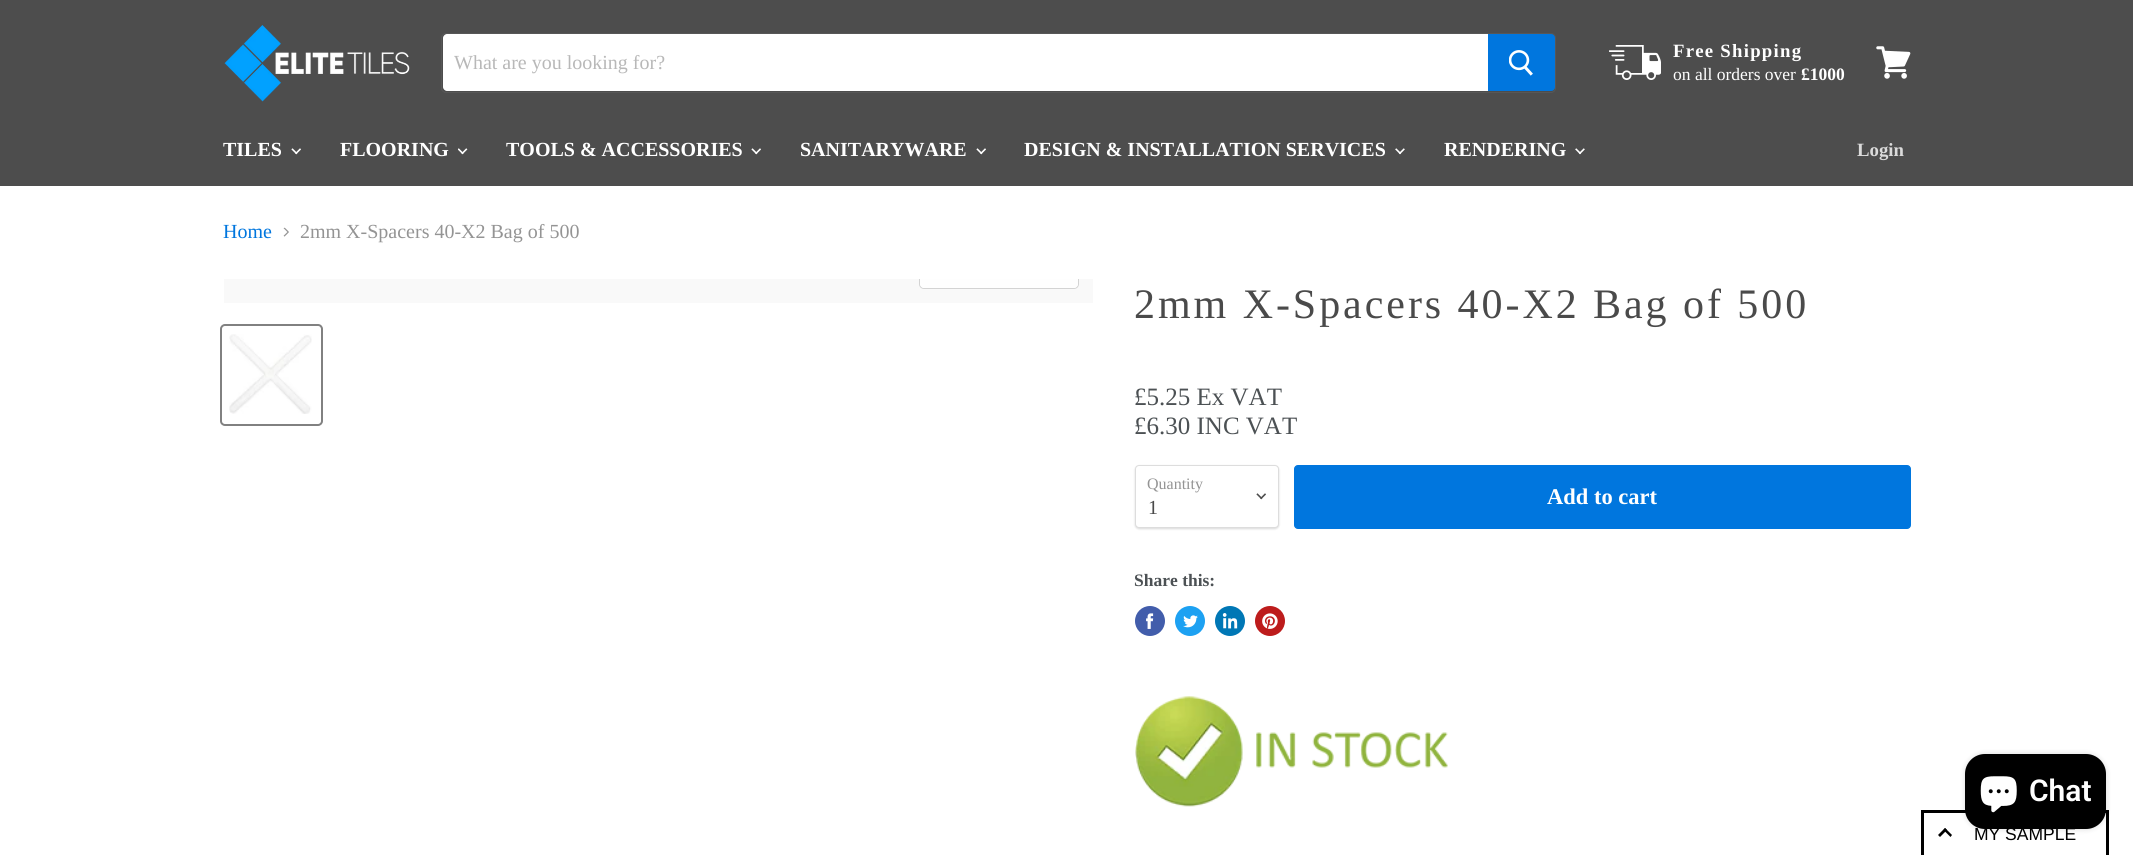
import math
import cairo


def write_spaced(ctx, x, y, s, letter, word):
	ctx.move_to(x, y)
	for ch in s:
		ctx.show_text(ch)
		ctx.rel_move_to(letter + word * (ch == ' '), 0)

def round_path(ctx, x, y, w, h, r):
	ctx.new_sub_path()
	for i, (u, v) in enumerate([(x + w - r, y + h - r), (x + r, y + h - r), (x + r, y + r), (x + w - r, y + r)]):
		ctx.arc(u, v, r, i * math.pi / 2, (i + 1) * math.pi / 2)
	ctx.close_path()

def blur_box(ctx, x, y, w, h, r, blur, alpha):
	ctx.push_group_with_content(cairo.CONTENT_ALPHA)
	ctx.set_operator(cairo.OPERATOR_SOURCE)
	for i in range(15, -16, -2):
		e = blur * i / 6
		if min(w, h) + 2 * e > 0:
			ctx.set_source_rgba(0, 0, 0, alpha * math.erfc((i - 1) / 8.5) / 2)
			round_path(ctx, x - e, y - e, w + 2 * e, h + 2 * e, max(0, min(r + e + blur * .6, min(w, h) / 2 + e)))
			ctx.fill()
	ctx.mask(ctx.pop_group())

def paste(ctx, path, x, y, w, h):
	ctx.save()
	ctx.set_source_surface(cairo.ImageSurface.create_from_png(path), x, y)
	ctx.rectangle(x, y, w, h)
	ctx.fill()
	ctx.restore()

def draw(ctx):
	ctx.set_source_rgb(1, 1, 1)
	ctx.paint()
	ctx.set_source_rgb(0.302, 0.302, 0.302)
	ctx.rectangle(0, 0, 2133, 186)
	ctx.fill()
	paste(ctx, 'media/1.png', 224, 25, 186, 77)
	round_path(ctx, 441.5, 33.5, 1114, 59, 4.5)
	ctx.set_source_rgba(0.502, 0.502, 0.502, 0.2)
	ctx.set_line_width(1)
	ctx.stroke()
	ctx.set_source_rgb(1, 1, 1)
	ctx.new_path()
	ctx.move_to(447, 34)
	ctx.line_to(1488, 34)
	ctx.line_to(1488, 91)
	ctx.line_to(447, 91)
	ctx.curve_to(445, 91, 443, 89, 443, 87)
	ctx.line_to(443, 38)
	ctx.curve_to(443, 36, 445, 34, 447, 34)
	ctx.close_path()
	ctx.fill()
	ctx.select_font_face('Liberation Serif')
	ctx.set_font_size(20)
	ctx.set_source_rgb(0.722, 0.722, 0.722)
	ctx.move_to(454, 69)
	ctx.show_text('What are you looking for?')
	ctx.set_source_rgb(0, 0.463, 0.871)
	ctx.new_path()
	ctx.move_to(1488.5, 34.5)
	ctx.line_to(1551, 34.5)
	ctx.curve_to(1553, 34.5, 1554.5, 36, 1554.5, 38)
	ctx.line_to(1554.5, 87)
	ctx.curve_to(1554.5, 89, 1553, 90.5, 1551, 90.5)
	ctx.line_to(1488.5, 90.5)
	ctx.close_path()
	ctx.fill_preserve()
	ctx.stroke()
	paste(ctx, 'media/2.png', 1509, 50, 24, 26)
	paste(ctx, 'media/3.png', 1609, 45, 52, 35)
	ctx.select_font_face('Liberation Serif', cairo.FONT_SLANT_NORMAL, cairo.FONT_WEIGHT_BOLD)
	ctx.set_font_size(18.75)
	ctx.set_source_rgb(1, 1, 1)
	write_spaced(ctx, 1673, 57, 'Free Shipping', 1.25, 0)
	ctx.select_font_face('Liberation Serif')
	ctx.set_font_size(17.5)
	ctx.move_to(1673, 80)
	ctx.show_text('on all orders over')
	ctx.select_font_face('Liberation Serif', cairo.FONT_SLANT_NORMAL, cairo.FONT_WEIGHT_BOLD)
	ctx.move_to(1801, 80)
	ctx.show_text('£1000')
	paste(ctx, 'media/4.png', 1876, 46, 35, 33)
	ctx.set_font_size(20)
	ctx.move_to(223, 156)
	ctx.show_text('TILES')
	paste(ctx, 'media/5.png', 291, 148, 10, 7)
	ctx.move_to(340, 156)
	ctx.show_text('FLOORING')
	paste(ctx, 'media/6.png', 458, 148, 10, 7)
	ctx.move_to(506, 156)
	ctx.show_text('TOOLS & ACCESSORIES')
	paste(ctx, 'media/5.png', 751, 148, 10, 7)
	ctx.move_to(800, 156)
	ctx.show_text('SANITARYWARE')
	paste(ctx, 'media/5.png', 976, 148, 10, 7)
	ctx.move_to(1024, 156)
	ctx.show_text('DESIGN & INSTALLATION SERVICES')
	paste(ctx, 'media/7.png', 1395, 148, 10, 7)
	ctx.move_to(1444, 156)
	ctx.show_text('RENDERING')
	paste(ctx, 'media/7.png', 1575, 148, 10, 7)
	ctx.set_font_size(18.75)
	ctx.set_source_rgb(0.859, 0.859, 0.859)
	ctx.move_to(1857, 156)
	ctx.show_text('Login')
	ctx.select_font_face('Liberation Serif')
	ctx.set_font_size(20)
	ctx.set_source_rgb(0, 0.463, 0.871)
	ctx.move_to(223, 238)
	ctx.show_text('Home')
	paste(ctx, 'media/8.png', 283, 227, 6, 10)
	ctx.set_source_rgb(0.58, 0.58, 0.58)
	ctx.move_to(300, 238)
	ctx.show_text('2mm X-Spacers 40-X2 Bag of 500')
	ctx.set_source_rgb(0.973, 0.973, 0.973)
	ctx.rectangle(224, 279, 869, 24)
	ctx.fill()
	ctx.save()
	ctx.rectangle(224, 279, 869, 24)
	ctx.clip()
	round_path(ctx, 919.5, 250.5, 159, 38, 4.5)
	ctx.set_source_rgb(0.827, 0.827, 0.827)
	ctx.stroke()
	ctx.restore()
	ctx.set_source_rgba(1, 1, 1, 0.9)
	ctx.new_path()
	ctx.move_to(920, 279)
	ctx.line_to(1078, 279)
	ctx.line_to(1078, 284)
	ctx.curve_to(1078, 286, 1076, 288, 1074, 288)
	ctx.line_to(924, 288)
	ctx.curve_to(922, 288, 920, 286, 920, 284)
	ctx.close_path()
	ctx.fill()
	round_path(ctx, 221, 325, 101, 100, 4)
	ctx.set_source_rgb(0.506, 0.506, 0.506)
	ctx.set_line_width(2)
	ctx.stroke()
	paste(ctx, 'media/9.png', 229, 334, 83, 80)
	ctx.set_font_size(42)
	ctx.set_source_rgb(0.29, 0.29, 0.29)
	write_spaced(ctx, 1134, 318, '2mm X-Spacers 40-X2 Bag of 500', 2.95, 0)
	ctx.set_font_size(25)
	ctx.set_source_rgb(0.298, 0.318, 0.329)
	ctx.move_to(1134, 405)
	ctx.show_text('£5.25 Ex VAT')
	ctx.move_to(1134, 434)
	ctx.show_text('£6.30 INC VAT')
	ctx.set_source_rgb(0, 0, 0)
	blur_box(ctx, 1135, 466, 144, 63, 4, 1, 0.15)
	ctx.set_source_rgb(1, 1, 1)
	round_path(ctx, 1135.5, 465.5, 143, 62, 3.5)
	ctx.fill_preserve()
	ctx.set_source_rgb(0.867, 0.867, 0.867)
	ctx.set_line_width(1)
	ctx.stroke()
	ctx.set_font_size(16)
	ctx.set_source_rgb(0.58, 0.58, 0.58)
	ctx.move_to(1147, 489)
	ctx.show_text('Quantity')
	paste(ctx, 'media/10.png', 1256, 493, 10, 7)
	ctx.set_font_size(20)
	ctx.set_source_rgb(0.29, 0.29, 0.29)
	ctx.move_to(1148, 514)
	ctx.show_text('1')
	ctx.set_source_rgb(0, 0.463, 0.871)
	round_path(ctx, 1294.5, 465.5, 616, 63, 3.5)
	ctx.fill_preserve()
	ctx.stroke()
	ctx.select_font_face('Liberation Serif', cairo.FONT_SLANT_NORMAL, cairo.FONT_WEIGHT_BOLD)
	ctx.set_font_size(22.5)
	ctx.set_source_rgb(1, 1, 1)
	ctx.move_to(1547, 504)
	ctx.show_text('Add to cart')
	ctx.set_font_size(17.5)
	ctx.set_source_rgb(0.298, 0.318, 0.329)
	ctx.move_to(1134, 586)
	ctx.show_text('Share this:')
	ctx.set_source_rgb(0.259, 0.365, 0.671)
	ctx.new_path()
	ctx.arc(1150, 621, 15, 0, 2 * math.pi)
	ctx.fill()
	paste(ctx, 'media/11.png', 1146, 613, 8, 16)
	ctx.set_source_rgb(0.114, 0.631, 0.949)
	ctx.arc(1190, 621, 15, 0, 2 * math.pi)
	ctx.fill()
	paste(ctx, 'media/12.png', 1183, 615, 15, 13)
	ctx.set_source_rgb(0, 0.467, 0.71)
	ctx.arc(1230, 621, 15, 0, 2 * math.pi)
	ctx.fill()
	paste(ctx, 'media/13.png', 1222, 613, 16, 16)
	ctx.set_source_rgb(0.741, 0.11, 0.11)
	ctx.arc(1270, 621, 15, 0, 2 * math.pi)
	ctx.fill()
	paste(ctx, 'media/14.png', 1262, 613, 16, 16)
	paste(ctx, 'media/15.png', 1135, 696, 313, 111)
	ctx.set_source_rgb(0, 0, 0)
	ctx.rectangle(1921, 810, 188, 3)
	ctx.fill()
	ctx.rectangle(2106, 810, 3, 45)
	ctx.fill()
	ctx.set_source_rgb(0, 0, 0)
	blur_box(ctx, 1965, 754, 141, 75, 20, 3, 0.15)
	ctx.set_source_rgb(0, 0, 0)
	round_path(ctx, 1965, 754, 141, 75, 20)
	ctx.fill()
	paste(ctx, 'media/16.png', 1980, 776, 37, 37)
	ctx.select_font_face('Roboto SemiBold')
	ctx.set_font_size(30)
	ctx.set_source_rgb(1, 1, 1)
	ctx.move_to(2029, 801)
	ctx.show_text('Chat')
	ctx.set_source_rgb(0, 0, 0)
	ctx.rectangle(1921, 810, 3, 45)
	ctx.fill()
	ctx.new_path()
	ctx.move_to(1945, 828)
	ctx.line_to(1952, 835)
	ctx.line_to(1950.5, 837)
	ctx.line_to(1943.5, 830)
	ctx.close_path()
	ctx.fill()
	ctx.new_path()
	ctx.move_to(1945, 828)
	ctx.line_to(1947, 830)
	ctx.line_to(1940, 837)
	ctx.line_to(1938, 835)
	ctx.close_path()
	ctx.fill()
	ctx.select_font_face('Liberation Sans')
	ctx.set_font_size(17.5)
	ctx.move_to(1974, 840)
	ctx.show_text('MY SAMPLE')


surface = cairo.ImageSurface(cairo.FORMAT_RGB24, 2133, 855)
ctx = cairo.Context(surface)
options = cairo.FontOptions()
options.set_hint_metrics(cairo.HINT_METRICS_OFF)
options.set_hint_style(cairo.HINT_STYLE_NONE)
ctx.set_font_options(options)
ctx.set_miter_limit(4)
draw(ctx)
surface.write_to_png('image.png')
